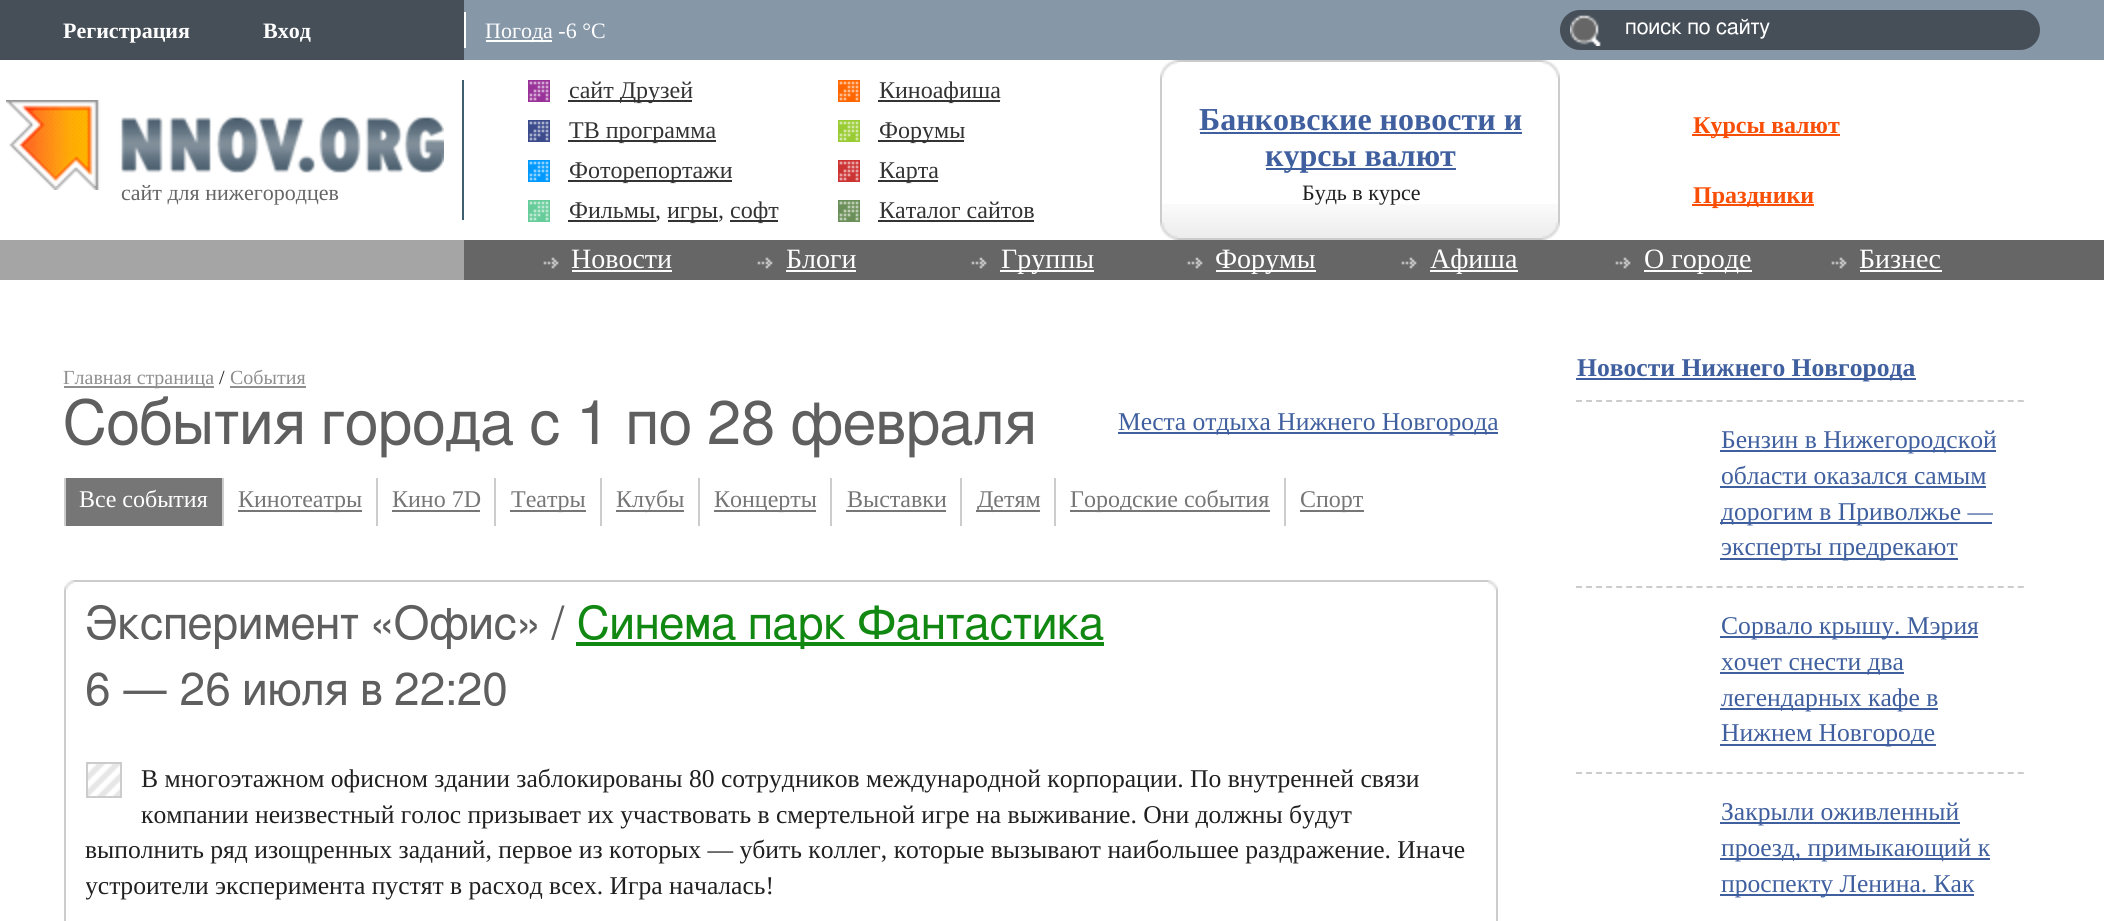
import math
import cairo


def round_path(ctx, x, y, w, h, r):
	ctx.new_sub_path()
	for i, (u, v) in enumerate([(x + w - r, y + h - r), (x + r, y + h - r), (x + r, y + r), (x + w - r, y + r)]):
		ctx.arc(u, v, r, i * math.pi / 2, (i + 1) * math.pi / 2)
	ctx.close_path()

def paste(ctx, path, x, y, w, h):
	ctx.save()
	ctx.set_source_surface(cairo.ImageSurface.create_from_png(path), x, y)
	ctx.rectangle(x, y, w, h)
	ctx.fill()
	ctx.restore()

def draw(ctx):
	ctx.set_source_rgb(1, 1, 1)
	ctx.paint()
	ctx.set_source_rgb(0.525, 0.592, 0.659)
	ctx.rectangle(464, 0, 1640, 60)
	ctx.fill()
	ctx.set_source_rgb(0.275, 0.306, 0.341)
	ctx.rectangle(0, 0, 464, 60)
	ctx.fill()
	ctx.select_font_face('Liberation Serif', cairo.FONT_SLANT_NORMAL, cairo.FONT_WEIGHT_BOLD)
	ctx.set_font_size(22)
	ctx.set_source_rgb(1, 1, 1)
	ctx.move_to(63, 38)
	ctx.show_text('Регистрация')
	ctx.move_to(263, 38)
	ctx.show_text('Вход')
	ctx.rectangle(464, 12, 2, 36)
	ctx.fill()
	ctx.rectangle(486, 40, 66, 2)
	ctx.fill()
	ctx.select_font_face('Liberation Serif')
	ctx.move_to(485, 38)
	ctx.show_text('Погода -6 °C')
	ctx.set_source_rgb(0.275, 0.306, 0.341)
	round_path(ctx, 1560, 10, 480, 40, 20)
	ctx.fill()
	paste(ctx, 'media/1.png', 1570, 14, 31, 32)
	ctx.select_font_face('FreeSans')
	ctx.set_font_size(21.75)
	ctx.set_source_rgb(1, 1, 1)
	ctx.move_to(1625, 34)
	ctx.show_text('поиск по сайту')
	paste(ctx, 'media/2.png', 6, 100, 438, 90)
	ctx.set_source_rgb(0.239, 0.369, 0.435)
	ctx.rectangle(462, 80, 2, 140)
	ctx.fill()
	ctx.select_font_face('Liberation Serif')
	ctx.set_font_size(22)
	ctx.set_source_rgb(0.4, 0.4, 0.4)
	ctx.move_to(121, 200)
	ctx.show_text('сайт для нижегородцев')
	ctx.set_source_rgb(0.6, 0.2, 0.6)
	ctx.rectangle(528, 80, 22, 22)
	ctx.fill()
	paste(ctx, 'media/3.png', 529, 81, 20, 20)
	ctx.set_source_rgb(0.2, 0.2, 0.2)
	ctx.rectangle(568, 100, 124, 2)
	ctx.fill()
	ctx.set_font_size(24)
	ctx.move_to(569, 98)
	ctx.show_text('сайт Друзей')
	ctx.set_source_rgb(1, 0.4, 0)
	ctx.rectangle(838, 80, 22, 22)
	ctx.fill()
	paste(ctx, 'media/4.png', 839, 81, 20, 20)
	ctx.set_source_rgb(0.2, 0.2, 0.2)
	ctx.rectangle(878, 100, 122, 2)
	ctx.fill()
	ctx.move_to(879, 98)
	ctx.show_text('Киноафиша')
	ctx.set_source_rgb(0.231, 0.294, 0.549)
	ctx.rectangle(528, 120, 22, 22)
	ctx.fill()
	paste(ctx, 'media/5.png', 529, 121, 20, 20)
	ctx.set_source_rgb(0.2, 0.2, 0.2)
	ctx.rectangle(568, 140, 148, 2)
	ctx.fill()
	ctx.move_to(569, 138)
	ctx.show_text('ТВ программа')
	ctx.set_source_rgb(0.6, 0.8, 0.2)
	ctx.rectangle(838, 120, 22, 22)
	ctx.fill()
	paste(ctx, 'media/6.png', 839, 121, 20, 20)
	ctx.set_source_rgb(0.2, 0.2, 0.2)
	ctx.rectangle(878, 140, 86, 2)
	ctx.fill()
	ctx.move_to(879, 138)
	ctx.show_text('Форумы')
	ctx.set_source_rgb(0, 0.6, 1)
	ctx.rectangle(528, 160, 22, 22)
	ctx.fill()
	paste(ctx, 'media/7.png', 529, 161, 20, 20)
	ctx.set_source_rgb(0.2, 0.2, 0.2)
	ctx.rectangle(568, 180, 164, 2)
	ctx.fill()
	ctx.move_to(569, 178)
	ctx.show_text('Фоторепортажи')
	ctx.set_source_rgb(0.8, 0.2, 0.2)
	ctx.rectangle(838, 160, 22, 22)
	ctx.fill()
	paste(ctx, 'media/8.png', 839, 161, 20, 20)
	ctx.set_source_rgb(0.2, 0.2, 0.2)
	ctx.rectangle(878, 180, 60, 2)
	ctx.fill()
	ctx.move_to(879, 178)
	ctx.show_text('Карта')
	ctx.set_source_rgb(0.4, 0.8, 0.6)
	ctx.rectangle(528, 200, 22, 22)
	ctx.fill()
	paste(ctx, 'media/9.png', 529, 201, 20, 20)
	ctx.set_source_rgb(0.2, 0.2, 0.2)
	ctx.move_to(569, 218)
	ctx.show_text('Фильмы')
	ctx.rectangle(568, 220, 88, 2)
	ctx.fill()
	ctx.move_to(655, 218)
	ctx.show_text(',')
	ctx.rectangle(668, 220, 50, 2)
	ctx.fill()
	ctx.move_to(667, 218)
	ctx.show_text('игры')
	ctx.move_to(718, 218)
	ctx.show_text(',')
	ctx.rectangle(730, 220, 48, 2)
	ctx.fill()
	ctx.move_to(730, 218)
	ctx.show_text('софт')
	ctx.set_source_rgb(0.42, 0.561, 0.349)
	ctx.rectangle(838, 200, 22, 22)
	ctx.fill()
	paste(ctx, 'media/10.png', 839, 201, 20, 20)
	ctx.set_source_rgb(0.2, 0.2, 0.2)
	ctx.move_to(879, 218)
	ctx.show_text('Каталог сайтов')
	ctx.rectangle(878, 220, 156, 2)
	ctx.fill()
	paste(ctx, 'media/11.png', 1162, 204, 396, 34)
	ctx.rectangle(1161, 61, 398, 178)
	ctx.set_source_rgb(0.8, 0.8, 0.8)
	ctx.stroke()
	paste(ctx, 'media/12.png', 1160, 60, 18, 18)
	paste(ctx, 'media/13.png', 1542, 60, 18, 18)
	ctx.select_font_face('Liberation Serif', cairo.FONT_SLANT_NORMAL, cairo.FONT_WEIGHT_BOLD)
	ctx.set_font_size(32)
	ctx.set_source_rgb(0.247, 0.373, 0.62)
	ctx.move_to(1199, 130)
	ctx.show_text('Банковские новости и')
	ctx.rectangle(1200, 132, 322, 2)
	ctx.fill()
	ctx.rectangle(1266, 168, 190, 2)
	ctx.fill()
	ctx.move_to(1265, 166)
	ctx.show_text('курсы валют')
	ctx.select_font_face('Liberation Serif')
	ctx.set_font_size(22)
	ctx.set_source_rgb(0.125, 0.125, 0.125)
	ctx.move_to(1302, 200)
	ctx.show_text('Будь в курсе')
	paste(ctx, 'media/14.png', 1160, 222, 18, 18)
	paste(ctx, 'media/15.png', 1542, 222, 18, 18)
	ctx.set_source_rgb(0.973, 0.306, 0.02)
	ctx.rectangle(1692, 134, 148, 2)
	ctx.fill()
	ctx.select_font_face('Liberation Serif', cairo.FONT_SLANT_NORMAL, cairo.FONT_WEIGHT_BOLD)
	ctx.set_font_size(24)
	ctx.move_to(1693, 133)
	ctx.show_text('Курсы валют')
	ctx.rectangle(1692, 204, 122, 2)
	ctx.fill()
	ctx.move_to(1693, 203)
	ctx.show_text('Праздники')
	ctx.set_source_rgb(0.4, 0.4, 0.4)
	ctx.rectangle(464, 240, 1640, 40)
	ctx.fill()
	ctx.set_source_rgb(0.647, 0.647, 0.647)
	ctx.rectangle(0, 240, 464, 40)
	ctx.fill()
	paste(ctx, 'media/16.png', 543, 257, 16, 12)
	ctx.select_font_face('Liberation Serif')
	ctx.set_font_size(28)
	ctx.set_source_rgb(1, 1, 1)
	ctx.move_to(571, 268)
	ctx.show_text('Новости')
	ctx.rectangle(572, 270, 100, 2)
	ctx.fill()
	paste(ctx, 'media/16.png', 757, 257, 16, 12)
	ctx.move_to(786, 268)
	ctx.show_text('Блоги')
	ctx.rectangle(786, 270, 70, 2)
	ctx.fill()
	paste(ctx, 'media/16.png', 971, 257, 16, 12)
	ctx.rectangle(1000, 270, 94, 2)
	ctx.fill()
	ctx.move_to(1001, 268)
	ctx.show_text('Группы')
	paste(ctx, 'media/16.png', 1187, 257, 16, 12)
	ctx.rectangle(1216, 270, 100, 2)
	ctx.fill()
	ctx.move_to(1215, 268)
	ctx.show_text('Форумы')
	paste(ctx, 'media/16.png', 1401, 257, 16, 12)
	ctx.rectangle(1430, 270, 88, 2)
	ctx.fill()
	ctx.move_to(1430, 268)
	ctx.show_text('Афиша')
	paste(ctx, 'media/16.png', 1615, 257, 16, 12)
	ctx.rectangle(1644, 270, 108, 2)
	ctx.fill()
	ctx.move_to(1644, 268)
	ctx.show_text('О городе')
	paste(ctx, 'media/16.png', 1831, 257, 16, 12)
	ctx.move_to(1859, 268)
	ctx.show_text('Бизнес')
	ctx.rectangle(1860, 270, 82, 2)
	ctx.fill()
	ctx.set_source_rgb(0.561, 0.561, 0.561)
	ctx.rectangle(64, 386, 150, 2)
	ctx.fill()
	ctx.set_font_size(20)
	ctx.move_to(63, 384)
	ctx.show_text('Главная страница')
	ctx.set_source_rgb(0.125, 0.125, 0.125)
	ctx.move_to(219, 384)
	ctx.show_text('/')
	ctx.set_source_rgb(0.561, 0.561, 0.561)
	ctx.move_to(230, 384)
	ctx.show_text('События')
	ctx.rectangle(230, 386, 76, 2)
	ctx.fill()
	ctx.select_font_face('FreeSans')
	ctx.set_font_size(61.5)
	ctx.set_source_rgb(0.373, 0.373, 0.373)
	ctx.move_to(63, 444)
	ctx.show_text('События города с 1 по 28 февраля')
	ctx.set_source_rgb(0.247, 0.373, 0.62)
	ctx.rectangle(1118, 432, 380, 2)
	ctx.fill()
	ctx.select_font_face('Liberation Serif')
	ctx.set_font_size(25.6)
	ctx.move_to(1118, 430)
	ctx.show_text('Места отдыха Нижнего Новгорода')
	ctx.set_source_rgb(0.463, 0.463, 0.463)
	ctx.rectangle(66, 478, 156, 48)
	ctx.fill()
	ctx.set_source_rgb(0.8, 0.8, 0.8)
	ctx.rectangle(64, 478, 2, 48)
	ctx.fill()
	ctx.set_font_size(24)
	ctx.set_source_rgb(1, 1, 1)
	ctx.move_to(79, 507)
	ctx.show_text('Все события')
	ctx.set_source_rgb(0.8, 0.8, 0.8)
	ctx.rectangle(222, 478, 2, 48)
	ctx.fill()
	ctx.set_source_rgb(0.463, 0.463, 0.463)
	ctx.rectangle(238, 510, 124, 2)
	ctx.fill()
	ctx.move_to(238, 507)
	ctx.show_text('Кинотеатры')
	ctx.set_source_rgb(0.8, 0.8, 0.8)
	ctx.rectangle(376, 478, 2, 48)
	ctx.fill()
	ctx.set_source_rgb(0.463, 0.463, 0.463)
	ctx.move_to(392, 507)
	ctx.show_text('Кино 7D')
	ctx.rectangle(392, 510, 88, 2)
	ctx.fill()
	ctx.set_source_rgb(0.8, 0.8, 0.8)
	ctx.rectangle(494, 478, 2, 48)
	ctx.fill()
	ctx.set_source_rgb(0.463, 0.463, 0.463)
	ctx.rectangle(510, 510, 76, 2)
	ctx.fill()
	ctx.move_to(511, 507)
	ctx.show_text('Театры')
	ctx.set_source_rgb(0.8, 0.8, 0.8)
	ctx.rectangle(600, 478, 2, 48)
	ctx.fill()
	ctx.set_source_rgb(0.463, 0.463, 0.463)
	ctx.rectangle(616, 510, 68, 2)
	ctx.fill()
	ctx.move_to(616, 507)
	ctx.show_text('Клубы')
	ctx.set_source_rgb(0.8, 0.8, 0.8)
	ctx.rectangle(698, 478, 2, 48)
	ctx.fill()
	ctx.set_source_rgb(0.463, 0.463, 0.463)
	ctx.rectangle(714, 510, 102, 2)
	ctx.fill()
	ctx.move_to(714, 507)
	ctx.show_text('Концерты')
	ctx.set_source_rgb(0.8, 0.8, 0.8)
	ctx.rectangle(830, 478, 2, 48)
	ctx.fill()
	ctx.set_source_rgb(0.463, 0.463, 0.463)
	ctx.move_to(847, 507)
	ctx.show_text('Выставки')
	ctx.rectangle(846, 510, 100, 2)
	ctx.fill()
	ctx.set_source_rgb(0.8, 0.8, 0.8)
	ctx.rectangle(960, 478, 2, 48)
	ctx.fill()
	ctx.set_source_rgb(0.463, 0.463, 0.463)
	ctx.rectangle(976, 510, 64, 2)
	ctx.fill()
	ctx.move_to(977, 507)
	ctx.show_text('Детям')
	ctx.set_source_rgb(0.8, 0.8, 0.8)
	ctx.rectangle(1054, 478, 2, 48)
	ctx.fill()
	ctx.set_source_rgb(0.463, 0.463, 0.463)
	ctx.rectangle(1070, 510, 200, 2)
	ctx.fill()
	ctx.move_to(1070, 507)
	ctx.show_text('Городские события')
	ctx.set_source_rgb(0.8, 0.8, 0.8)
	ctx.rectangle(1284, 478, 2, 48)
	ctx.fill()
	ctx.set_source_rgb(0.463, 0.463, 0.463)
	ctx.rectangle(1300, 510, 64, 2)
	ctx.fill()
	ctx.move_to(1300, 507)
	ctx.show_text('Спорт')
	ctx.rectangle(65, 581, 1432, 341)
	ctx.set_source_rgb(0.8, 0.8, 0.8)
	ctx.stroke()
	paste(ctx, 'media/17.png', 64, 580, 10, 10)
	paste(ctx, 'media/18.png', 1488, 580, 10, 10)
	ctx.select_font_face('FreeSans')
	ctx.set_font_size(46)
	ctx.set_source_rgb(0.373, 0.373, 0.373)
	ctx.move_to(85, 639)
	ctx.show_text('Эксперимент «Офис» /')
	ctx.set_source_rgb(0.067, 0.533, 0.067)
	ctx.rectangle(576, 642, 528, 4)
	ctx.fill()
	ctx.move_to(577, 639)
	ctx.show_text('Синема парк Фантастика')
	ctx.set_source_rgb(0.373, 0.373, 0.373)
	ctx.move_to(85, 705)
	ctx.show_text('6 — 26 июля в 22:20')
	paste(ctx, 'media/19.png', 88, 764, 32, 32)
	ctx.rectangle(87, 763, 34, 34)
	ctx.set_source_rgb(0.8, 0.8, 0.8)
	ctx.stroke()
	ctx.select_font_face('Liberation Serif')
	ctx.set_font_size(25.6)
	ctx.set_source_rgb(0.125, 0.125, 0.125)
	for x, y, s in [
		(141, 787, 'В многоэтажном офисном здании заблокированы 80 сотрудников международной корпорации. По внутренней связи'),
		(141, 823, 'компании неизвестный голос призывает их участвовать в смертельной игре на выживание. Они должны будут'),
		(85, 858, 'выполнить ряд изощренных заданий, первое из которых — убить коллег, которые вызывают наибольшее раздражение. Иначе'),
	]:
		ctx.move_to(x, y)
		ctx.show_text(s)
	ctx.save()
	ctx.rectangle(86, 602, 1390, 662)
	ctx.clip()
	ctx.move_to(85, 894)
	ctx.show_text('устроители эксперимента пустят в расход всех. Игра началась!')
	ctx.restore()
	ctx.set_source_rgb(0.247, 0.373, 0.62)
	ctx.rectangle(1576, 378, 340, 2)
	ctx.fill()
	ctx.select_font_face('Liberation Serif', cairo.FONT_SLANT_NORMAL, cairo.FONT_WEIGHT_BOLD)
	ctx.move_to(1577, 376)
	ctx.show_text('Новости Нижнего Новгорода')
	ctx.new_path()
	ctx.move_to(1576, 401)
	ctx.line_to(2024, 401)
	ctx.set_source_rgb(0.8, 0.8, 0.8)
	ctx.set_dash([6, 4.04])
	ctx.stroke()
	ctx.set_source_rgb(0.247, 0.373, 0.62)
	ctx.rectangle(1720, 450, 276, 2)
	ctx.fill()
	ctx.select_font_face('Liberation Serif')
	ctx.move_to(1721, 448)
	ctx.show_text('Бензин в Нижегородской')
	ctx.move_to(1721, 484)
	ctx.show_text('области оказался самым')
	ctx.rectangle(1720, 486, 266, 2)
	ctx.fill()
	ctx.rectangle(1720, 522, 272, 2)
	ctx.fill()
	ctx.move_to(1721, 520)
	ctx.show_text('дорогим в Приволжье —')
	ctx.rectangle(1720, 558, 238, 2)
	ctx.fill()
	ctx.move_to(1721, 555)
	ctx.show_text('эксперты предрекают')
	ctx.new_path()
	ctx.move_to(1576, 587)
	ctx.line_to(2024, 587)
	ctx.set_source_rgb(0.8, 0.8, 0.8)
	ctx.stroke()
	ctx.set_source_rgb(0.247, 0.373, 0.62)
	ctx.rectangle(1720, 636, 258, 2)
	ctx.fill()
	ctx.move_to(1721, 634)
	ctx.show_text('Сорвало крышу. Мэрия')
	ctx.rectangle(1720, 672, 184, 2)
	ctx.fill()
	ctx.move_to(1721, 670)
	ctx.show_text('хочет снести два')
	ctx.rectangle(1720, 708, 218, 2)
	ctx.fill()
	ctx.move_to(1721, 706)
	ctx.show_text('легендарных кафе в')
	ctx.rectangle(1720, 744, 216, 2)
	ctx.fill()
	ctx.move_to(1721, 741)
	ctx.show_text('Нижнем Новгороде')
	ctx.new_path()
	ctx.move_to(1576, 773)
	ctx.line_to(2024, 773)
	ctx.set_source_rgb(0.8, 0.8, 0.8)
	ctx.stroke()
	ctx.set_source_rgb(0.247, 0.373, 0.62)
	ctx.rectangle(1720, 822, 240, 2)
	ctx.fill()
	ctx.move_to(1721, 820)
	ctx.show_text('Закрыли оживленный')
	ctx.rectangle(1720, 858, 270, 2)
	ctx.fill()
	ctx.move_to(1721, 856)
	ctx.show_text('проезд, примыкающий к')
	ctx.rectangle(1720, 894, 254, 2)
	ctx.fill()
	ctx.move_to(1721, 892)
	ctx.show_text('проспекту Ленина. Как')


surface = cairo.ImageSurface(cairo.FORMAT_RGB24, 2104, 921)
ctx = cairo.Context(surface)
options = cairo.FontOptions()
options.set_hint_metrics(cairo.HINT_METRICS_OFF)
options.set_hint_style(cairo.HINT_STYLE_NONE)
ctx.set_font_options(options)
ctx.set_miter_limit(4)
draw(ctx)
surface.write_to_png('image.png')
